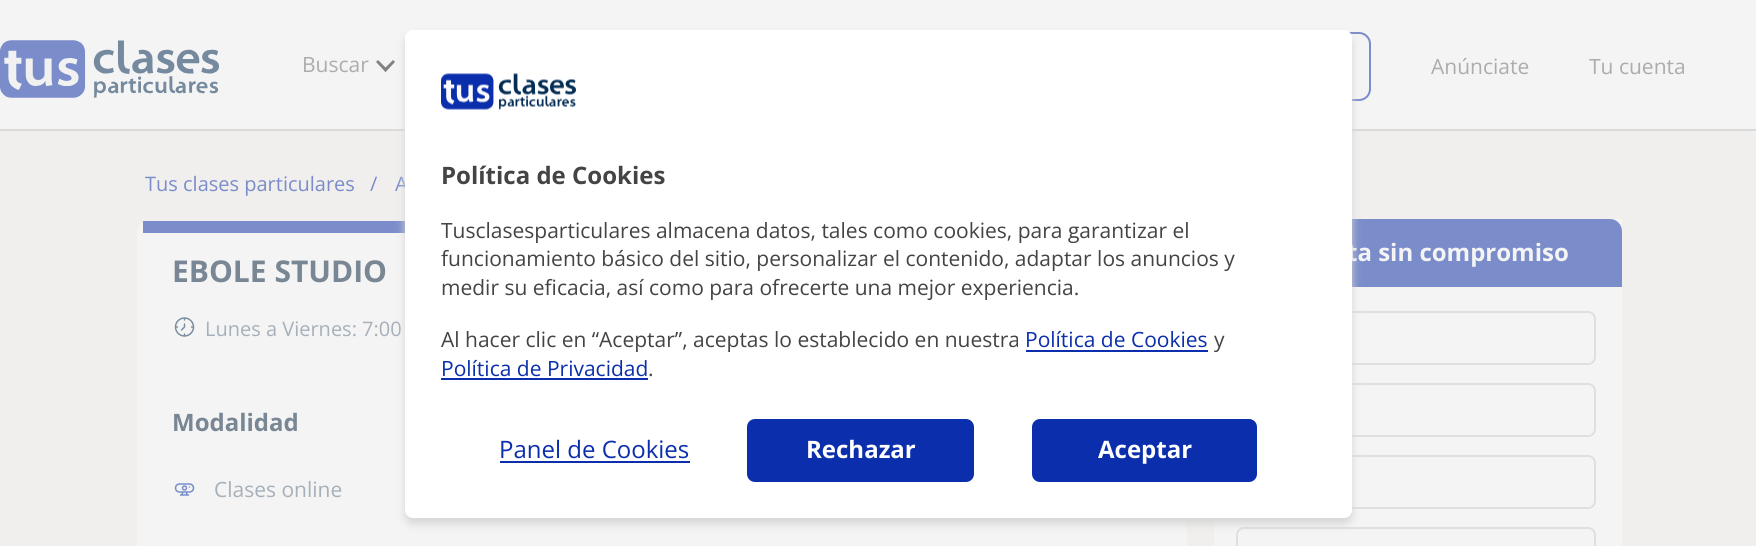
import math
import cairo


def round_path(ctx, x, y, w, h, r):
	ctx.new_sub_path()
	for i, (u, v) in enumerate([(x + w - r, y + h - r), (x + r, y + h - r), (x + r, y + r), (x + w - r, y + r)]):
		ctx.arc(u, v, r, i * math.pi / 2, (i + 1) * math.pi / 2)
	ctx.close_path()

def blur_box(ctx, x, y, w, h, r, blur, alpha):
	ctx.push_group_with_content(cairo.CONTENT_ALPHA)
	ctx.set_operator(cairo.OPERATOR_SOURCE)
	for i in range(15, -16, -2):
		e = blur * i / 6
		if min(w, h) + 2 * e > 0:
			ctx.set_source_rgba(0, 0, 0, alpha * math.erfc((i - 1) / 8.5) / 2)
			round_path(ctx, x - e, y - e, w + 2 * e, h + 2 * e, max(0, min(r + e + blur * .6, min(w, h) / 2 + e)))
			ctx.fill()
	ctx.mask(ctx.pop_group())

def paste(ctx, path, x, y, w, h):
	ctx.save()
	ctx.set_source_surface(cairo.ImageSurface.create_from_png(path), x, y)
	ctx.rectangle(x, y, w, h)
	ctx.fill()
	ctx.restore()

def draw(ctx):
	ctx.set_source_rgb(0.941, 0.937, 0.929)
	ctx.paint()
	ctx.set_source_rgb(0.957, 0.957, 0.957)
	ctx.rectangle(0, 0, 1756, 129)
	ctx.fill()
	ctx.set_source_rgb(0.855, 0.855, 0.855)
	ctx.rectangle(0, 129, 1756, 2)
	ctx.fill()
	paste(ctx, 'media/1.png', 0, 40, 219, 58)
	ctx.select_font_face('Open Sans')
	ctx.set_font_size(21)
	ctx.set_source_rgb(0.675, 0.675, 0.675)
	ctx.move_to(302, 72)
	ctx.show_text('Buscar')
	ctx.set_source_rgb(0.506, 0.506, 0.506)
	ctx.new_path()
	ctx.move_to(383.5, 69.5)
	ctx.line_to(393, 60)
	ctx.line_to(395, 62)
	ctx.line_to(385.5, 72)
	ctx.close_path()
	ctx.fill()
	ctx.new_path()
	ctx.move_to(376, 62)
	ctx.line_to(378, 60)
	ctx.line_to(387.5, 69.5)
	ctx.line_to(385.5, 72)
	ctx.close_path()
	ctx.fill()
	round_path(ctx, 1024, 33, 346, 67, 11)
	ctx.set_source_rgb(0.478, 0.549, 0.792)
	ctx.stroke()
	ctx.set_source_rgb(0.675, 0.675, 0.675)
	ctx.move_to(1431, 74)
	ctx.show_text('Anúnciate')
	ctx.move_to(1589, 74)
	ctx.show_text('Tu cuenta')
	ctx.set_font_size(20)
	ctx.set_source_rgb(0.478, 0.549, 0.792)
	for x, y, s in [
		(145, 191, 'Tus clases particulares'),
		(370, 191, '/'),
		(395, 191, 'A'),
	]:
		ctx.move_to(x, y)
		ctx.show_text(s)
	ctx.set_source_rgb(0.957, 0.957, 0.957)
	ctx.new_path()
	ctx.move_to(149, 221)
	ctx.line_to(1175, 221)
	ctx.curve_to(1181.5, 221, 1187, 226.5, 1187, 233)
	ctx.line_to(1187, 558)
	ctx.line_to(149, 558)
	ctx.curve_to(142.5, 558, 137, 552.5, 137, 546)
	ctx.line_to(137, 233)
	ctx.curve_to(137, 226.5, 142.5, 221, 149, 221)
	ctx.close_path()
	ctx.fill()
	ctx.set_source_rgb(0.478, 0.549, 0.792)
	ctx.rectangle(143, 221, 262, 12)
	ctx.fill()
	ctx.select_font_face('Open Sans', cairo.FONT_SLANT_NORMAL, cairo.FONT_WEIGHT_BOLD)
	ctx.set_font_size(30)
	ctx.set_source_rgb(0.475, 0.525, 0.58)
	ctx.move_to(172, 282)
	ctx.show_text('EBOLE STUDIO')
	paste(ctx, 'media/2.png', 174, 317, 21, 20)
	ctx.select_font_face('Open Sans')
	ctx.set_font_size(20)
	ctx.set_source_rgb(0.651, 0.69, 0.729)
	ctx.move_to(205, 336)
	ctx.show_text('Lunes a Viernes: 7:00')
	ctx.select_font_face('Open Sans', cairo.FONT_SLANT_NORMAL, cairo.FONT_WEIGHT_BOLD)
	ctx.set_font_size(24)
	ctx.set_source_rgb(0.475, 0.525, 0.58)
	ctx.move_to(172, 431)
	ctx.show_text('Modalidad')
	paste(ctx, 'media/3.png', 174, 483, 21, 13)
	ctx.select_font_face('Open Sans')
	ctx.set_font_size(21)
	ctx.set_source_rgb(0.651, 0.69, 0.729)
	ctx.move_to(214, 497)
	ctx.show_text('Clases online')
	ctx.set_source_rgb(0.957, 0.957, 0.957)
	ctx.rectangle(1214, 219, 408, 327)
	ctx.fill()
	ctx.set_source_rgb(0.478, 0.549, 0.792)
	ctx.new_path()
	ctx.move_to(1226, 219)
	ctx.line_to(1610, 219)
	ctx.curve_to(1616.5, 219, 1622, 224.5, 1622, 231)
	ctx.line_to(1622, 287)
	ctx.line_to(1214, 287)
	ctx.line_to(1214, 231)
	ctx.curve_to(1214, 224.5, 1219.5, 219, 1226, 219)
	ctx.close_path()
	ctx.fill()
	ctx.select_font_face('Open Sans', cairo.FONT_SLANT_NORMAL, cairo.FONT_WEIGHT_BOLD)
	ctx.set_font_size(24)
	ctx.set_source_rgb(0.957, 0.957, 0.957)
	ctx.move_to(1347, 261)
	ctx.show_text('ta sin compromiso')
	round_path(ctx, 1237, 312, 358, 52, 7)
	ctx.set_source_rgb(0.875, 0.875, 0.875)
	ctx.stroke()
	round_path(ctx, 1237, 384, 358, 52, 7)
	ctx.stroke()
	round_path(ctx, 1237, 456, 358, 52, 7)
	ctx.stroke()
	round_path(ctx, 1237, 528, 358, 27, 7)
	ctx.stroke()
	ctx.set_source_rgb(0.839, 0.839, 0.839)
	blur_box(ctx, 405, 36, 947, 488, 8, 4.5, 1)
	ctx.set_source_rgb(1, 1, 1)
	round_path(ctx, 405, 30, 947, 488, 8)
	ctx.fill()
	paste(ctx, 'media/4.png', 441, 73, 135, 37)
	ctx.set_source_rgb(0.267, 0.267, 0.267)
	ctx.move_to(441, 184)
	ctx.show_text('Política de Cookies')
	ctx.select_font_face('Open Sans')
	ctx.set_font_size(21)
	for x, y, s in [
		(441, 238, 'Tusclasesparticulares almacena datos, tales como cookies, para garantizar el'),
		(441, 266, 'funcionamiento básico del sitio, personalizar el contenido, adaptar los anuncios y'),
		(441, 295, 'medir su eficacia, así como para ofrecerte una mejor experiencia.'),
		(441, 347, 'Al hacer clic en “Aceptar”, aceptas lo establecido en nuestra'),
	]:
		ctx.move_to(x, y)
		ctx.show_text(s)
	ctx.set_source_rgb(0.043, 0.184, 0.675)
	ctx.move_to(1025, 347)
	ctx.show_text('Política de Cookies')
	ctx.rectangle(1026, 350, 182, 2)
	ctx.fill()
	ctx.set_source_rgb(0.267, 0.267, 0.267)
	ctx.move_to(1214, 347)
	ctx.show_text('y')
	ctx.set_source_rgb(0.043, 0.184, 0.675)
	ctx.move_to(441, 376)
	ctx.show_text('Política de Privacidad')
	ctx.rectangle(441, 378, 207, 2)
	ctx.fill()
	ctx.set_source_rgb(0.267, 0.267, 0.267)
	ctx.move_to(648, 376)
	ctx.show_text('.')
	ctx.set_font_size(24)
	ctx.set_source_rgb(0.043, 0.184, 0.675)
	ctx.move_to(499, 458)
	ctx.show_text('Panel de Cookies')
	ctx.rectangle(500, 461, 190, 2)
	ctx.fill()
	round_path(ctx, 747, 419, 227, 63, 8)
	ctx.fill()
	ctx.select_font_face('Open Sans', cairo.FONT_SLANT_NORMAL, cairo.FONT_WEIGHT_BOLD)
	ctx.set_source_rgb(1, 1, 1)
	ctx.move_to(806, 458)
	ctx.show_text('Rechazar')
	ctx.set_source_rgb(0.043, 0.184, 0.675)
	round_path(ctx, 1032, 419, 225, 63, 8)
	ctx.fill()
	ctx.set_source_rgb(1, 1, 1)
	ctx.move_to(1098, 458)
	ctx.show_text('Aceptar')


surface = cairo.ImageSurface(cairo.FORMAT_RGB24, 1756, 546)
ctx = cairo.Context(surface)
options = cairo.FontOptions()
options.set_hint_metrics(cairo.HINT_METRICS_OFF)
options.set_hint_style(cairo.HINT_STYLE_NONE)
ctx.set_font_options(options)
ctx.set_miter_limit(4)
draw(ctx)
surface.write_to_png('image.png')
